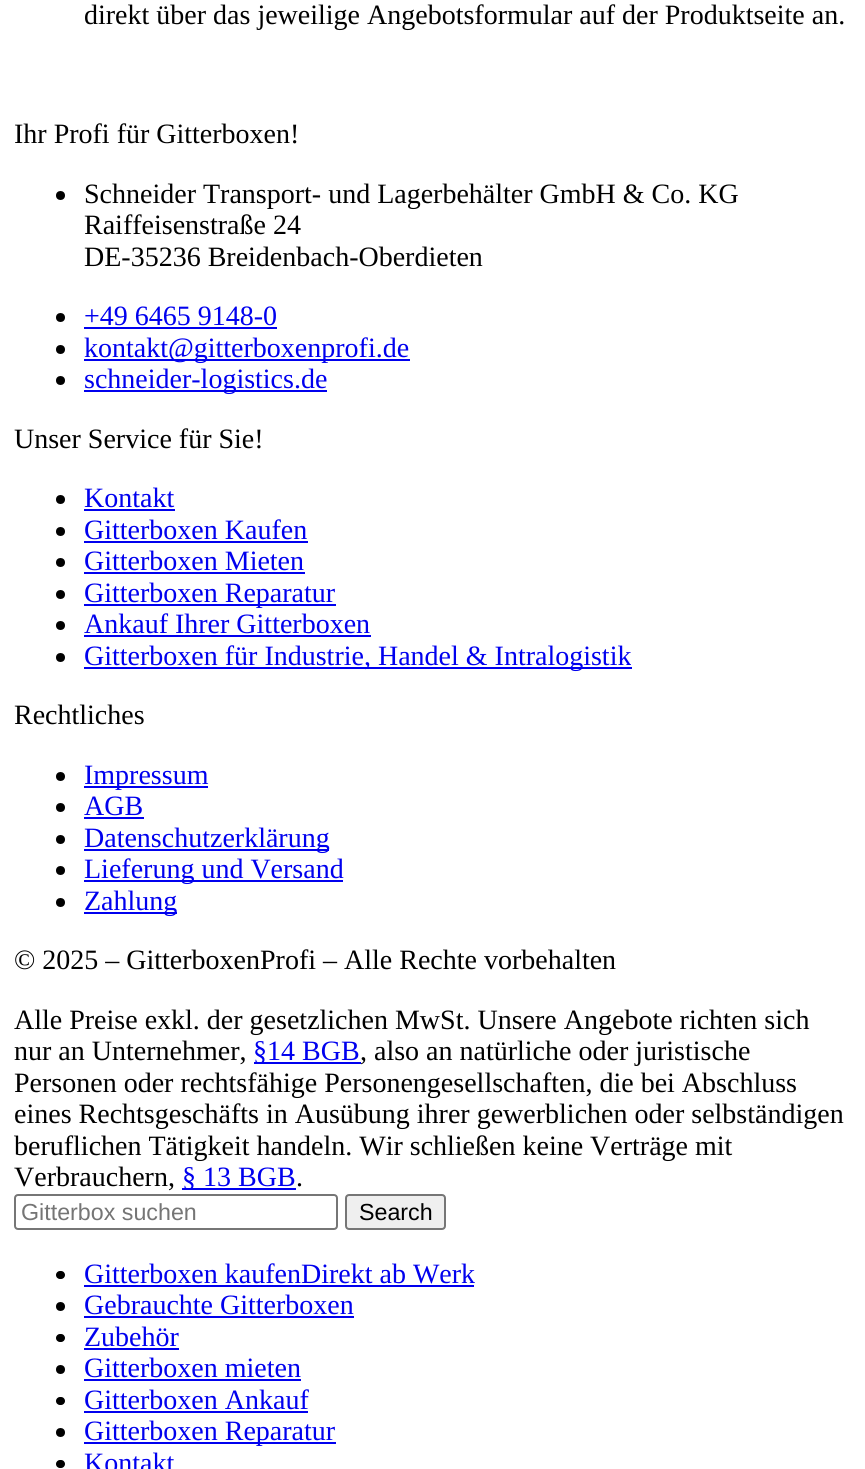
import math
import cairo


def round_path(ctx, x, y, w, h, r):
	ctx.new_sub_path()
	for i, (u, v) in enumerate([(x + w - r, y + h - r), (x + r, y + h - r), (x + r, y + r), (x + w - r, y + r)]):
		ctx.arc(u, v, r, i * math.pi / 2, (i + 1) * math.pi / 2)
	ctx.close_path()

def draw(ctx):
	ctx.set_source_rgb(1, 1, 1)
	ctx.paint()
	ctx.select_font_face('Liberation Serif')
	ctx.set_font_size(28)
	ctx.set_source_rgb(0, 0, 0)
	ctx.move_to(84, 24)
	ctx.show_text('direkt über das jeweilige Angebotsformular auf der Produktseite an.')
	ctx.move_to(14, 143)
	ctx.show_text('Ihr Profi für Gitterboxen!')
	ctx.new_path()
	ctx.arc(60.5, 195.5, 4.5, 0, 2 * math.pi)
	ctx.fill()
	for x, y, s in [
		(84, 203, 'Schneider Transport- und Lagerbehälter GmbH & Co. KG'),
		(84, 234, 'Raiffeisenstraße 24'),
		(84, 266, 'DE-35236 Breidenbach-Oberdieten'),
	]:
		ctx.move_to(x, y)
		ctx.show_text(s)
	ctx.new_path()
	ctx.arc(60.5, 317.5, 4.5, 0, 2 * math.pi)
	ctx.fill()
	ctx.set_source_rgb(0, 0, 0.933)
	ctx.move_to(84, 325)
	ctx.show_text('+49 6465 9148-0')
	ctx.rectangle(84, 327, 193, 2)
	ctx.fill()
	ctx.set_source_rgb(0, 0, 0)
	ctx.arc(60.5, 349.5, 4.5, 0, 2 * math.pi)
	ctx.fill()
	ctx.set_source_rgb(0, 0, 0.933)
	ctx.rectangle(84, 359, 326, 2)
	ctx.fill()
	ctx.move_to(84, 357)
	ctx.show_text('kontakt@gitterboxenprofi.de')
	ctx.set_source_rgb(0, 0, 0)
	ctx.new_path()
	ctx.arc(60.5, 380.5, 4.5, 0, 2 * math.pi)
	ctx.fill()
	ctx.set_source_rgb(0, 0, 0.933)
	ctx.rectangle(84, 390, 243, 2)
	ctx.fill()
	ctx.move_to(84, 388)
	ctx.show_text('schneider-logistics.de')
	ctx.set_source_rgb(0, 0, 0)
	ctx.move_to(14, 448)
	ctx.show_text('Unser Service für Sie!')
	ctx.new_path()
	ctx.arc(60.5, 499.5, 4.5, 0, 2 * math.pi)
	ctx.fill()
	ctx.set_source_rgb(0, 0, 0.933)
	ctx.move_to(84, 507)
	ctx.show_text('Kontakt')
	ctx.rectangle(84, 509, 91, 2)
	ctx.fill()
	ctx.set_source_rgb(0, 0, 0)
	ctx.arc(60.5, 531.5, 4.5, 0, 2 * math.pi)
	ctx.fill()
	ctx.set_source_rgb(0, 0, 0.933)
	ctx.move_to(84, 539)
	ctx.show_text('Gitterboxen Kaufen')
	ctx.rectangle(84, 541, 224, 2)
	ctx.fill()
	ctx.set_source_rgb(0, 0, 0)
	ctx.arc(60.5, 562.5, 4.5, 0, 2 * math.pi)
	ctx.fill()
	ctx.set_source_rgb(0, 0, 0.933)
	ctx.move_to(84, 570)
	ctx.show_text('Gitterboxen Mieten')
	ctx.rectangle(84, 572, 221, 2)
	ctx.fill()
	ctx.set_source_rgb(0, 0, 0)
	ctx.arc(60.5, 594.5, 4.5, 0, 2 * math.pi)
	ctx.fill()
	ctx.set_source_rgb(0, 0, 0.933)
	ctx.rectangle(84, 604, 252, 2)
	ctx.fill()
	ctx.move_to(84, 602)
	ctx.show_text('Gitterboxen Reparatur')
	ctx.set_source_rgb(0, 0, 0)
	ctx.new_path()
	ctx.arc(60.5, 625.5, 4.5, 0, 2 * math.pi)
	ctx.fill()
	ctx.set_source_rgb(0, 0, 0.933)
	ctx.move_to(84, 633)
	ctx.show_text('Ankauf Ihrer Gitterboxen')
	ctx.rectangle(84, 635, 287, 2)
	ctx.fill()
	ctx.set_source_rgb(0, 0, 0)
	ctx.arc(60.5, 657.5, 4.5, 0, 2 * math.pi)
	ctx.fill()
	ctx.set_source_rgb(0, 0, 0.933)
	ctx.rectangle(84, 667, 548, 2)
	ctx.fill()
	ctx.move_to(84, 665)
	ctx.show_text('Gitterboxen für Industrie, Handel & Intralogistik')
	ctx.set_source_rgb(0, 0, 0)
	ctx.move_to(14, 724)
	ctx.show_text('Rechtliches')
	ctx.new_path()
	ctx.arc(60.5, 776.5, 4.5, 0, 2 * math.pi)
	ctx.fill()
	ctx.set_source_rgb(0, 0, 0.933)
	ctx.rectangle(84, 786, 124, 2)
	ctx.fill()
	ctx.move_to(84, 784)
	ctx.show_text('Impressum')
	ctx.set_source_rgb(0, 0, 0)
	ctx.new_path()
	ctx.arc(60.5, 807.5, 4.5, 0, 2 * math.pi)
	ctx.fill()
	ctx.set_source_rgb(0, 0, 0.933)
	ctx.move_to(84, 815)
	ctx.show_text('AGB')
	ctx.rectangle(84, 817, 60, 2)
	ctx.fill()
	ctx.set_source_rgb(0, 0, 0)
	ctx.arc(60.5, 839.5, 4.5, 0, 2 * math.pi)
	ctx.fill()
	ctx.set_source_rgb(0, 0, 0.933)
	ctx.rectangle(84, 849, 245, 2)
	ctx.fill()
	ctx.move_to(84, 847)
	ctx.show_text('Datenschutzerklärung')
	ctx.set_source_rgb(0, 0, 0)
	ctx.new_path()
	ctx.arc(60.5, 870.5, 4.5, 0, 2 * math.pi)
	ctx.fill()
	ctx.set_source_rgb(0, 0, 0.933)
	ctx.rectangle(84, 880, 259, 2)
	ctx.fill()
	ctx.move_to(84, 878)
	ctx.show_text('Lieferung und Versand')
	ctx.set_source_rgb(0, 0, 0)
	ctx.new_path()
	ctx.arc(60.5, 902.5, 4.5, 0, 2 * math.pi)
	ctx.fill()
	ctx.set_source_rgb(0, 0, 0.933)
	ctx.rectangle(84, 912, 93, 2)
	ctx.fill()
	ctx.move_to(84, 910)
	ctx.show_text('Zahlung')
	ctx.set_source_rgb(0, 0, 0)
	for x, y, s in [
		(14, 969, '© 2025 – GitterboxenProfi – Alle Rechte vorbehalten'),
		(14, 1029, 'Alle Preise exkl. der gesetzlichen MwSt. Unsere Angebote richten sich'),
		(14, 1060, 'nur an Unternehmer,'),
	]:
		ctx.move_to(x, y)
		ctx.show_text(s)
	ctx.set_source_rgb(0, 0, 0.933)
	ctx.rectangle(254, 1062, 107, 2)
	ctx.fill()
	ctx.move_to(253, 1060)
	ctx.show_text('§14 BGB')
	ctx.set_source_rgb(0, 0, 0)
	for x, y, s in [
		(360, 1060, ', also an natürliche oder juristische'),
		(14, 1092, 'Personen oder rechtsfähige Personengesellschaften, die bei Abschluss'),
		(14, 1123, 'eines Rechtsgeschäfts in Ausübung ihrer gewerblichen oder selbständigen'),
		(14, 1155, 'beruflichen Tätigkeit handeln. Wir schließen keine Verträge mit'),
		(14, 1186, 'Verbrauchern,'),
	]:
		ctx.move_to(x, y)
		ctx.show_text(s)
	ctx.set_source_rgb(0, 0, 0.933)
	ctx.rectangle(182, 1188, 114, 2)
	ctx.fill()
	ctx.move_to(182, 1186)
	ctx.show_text('§ 13 BGB')
	ctx.set_source_rgb(0, 0, 0)
	ctx.move_to(296, 1186)
	ctx.show_text('.')
	round_path(ctx, 15, 1195, 322, 34, 3)
	ctx.set_source_rgb(0.463, 0.463, 0.463)
	ctx.stroke()
	ctx.select_font_face('Liberation Sans')
	ctx.set_font_size(23.25)
	ctx.set_source_rgb(0.459, 0.459, 0.459)
	ctx.move_to(21, 1220)
	ctx.show_text('Gitterbox suchen')
	ctx.set_source_rgb(0.937, 0.937, 0.937)
	round_path(ctx, 346, 1195, 99, 34, 3)
	ctx.fill_preserve()
	ctx.set_source_rgb(0.463, 0.463, 0.463)
	ctx.stroke()
	ctx.set_source_rgb(0, 0, 0)
	ctx.move_to(359, 1220)
	ctx.show_text('Search')
	round_path(ctx, 56, 1271, 9, 8, 4)
	ctx.fill()
	ctx.select_font_face('Liberation Serif')
	ctx.set_font_size(28)
	ctx.set_source_rgb(0, 0, 0.933)
	ctx.move_to(84, 1283)
	ctx.show_text('Gitterboxen kaufenDirekt ab Werk')
	ctx.rectangle(84, 1285, 390, 2)
	ctx.fill()
	ctx.set_source_rgb(0, 0, 0)
	ctx.arc(60.5, 1306.5, 4.5, 0, 2 * math.pi)
	ctx.fill()
	ctx.set_source_rgb(0, 0, 0.933)
	ctx.move_to(84, 1314)
	ctx.show_text('Gebrauchte Gitterboxen')
	ctx.rectangle(84, 1316, 270, 2)
	ctx.fill()
	ctx.set_source_rgb(0, 0, 0)
	round_path(ctx, 56, 1334, 9, 8, 4)
	ctx.fill()
	ctx.set_source_rgb(0, 0, 0.933)
	ctx.move_to(84, 1346)
	ctx.show_text('Zubehör')
	ctx.rectangle(84, 1348, 95, 2)
	ctx.fill()
	ctx.set_source_rgb(0, 0, 0)
	ctx.arc(60.5, 1369.5, 4.5, 0, 2 * math.pi)
	ctx.fill()
	ctx.set_source_rgb(0, 0, 0.933)
	ctx.move_to(84, 1377)
	ctx.show_text('Gitterboxen mieten')
	ctx.rectangle(84, 1379, 217, 2)
	ctx.fill()
	ctx.set_source_rgb(0, 0, 0)
	round_path(ctx, 56, 1397, 9, 8, 4)
	ctx.fill()
	ctx.set_source_rgb(0, 0, 0.933)
	ctx.move_to(84, 1409)
	ctx.show_text('Gitterboxen Ankauf')
	ctx.rectangle(84, 1411, 224, 2)
	ctx.fill()
	ctx.set_source_rgb(0, 0, 0)
	ctx.arc(60.5, 1432.5, 4.5, 0, 2 * math.pi)
	ctx.fill()
	ctx.set_source_rgb(0, 0, 0.933)
	ctx.rectangle(84, 1442, 252, 2)
	ctx.fill()
	ctx.move_to(84, 1440)
	ctx.show_text('Gitterboxen Reparatur')
	ctx.set_source_rgb(0, 0, 0)
	round_path(ctx, 56, 1460, 9, 8, 4)
	ctx.fill()
	ctx.set_source_rgb(0, 0, 0.933)
	ctx.move_to(84, 1472)
	ctx.show_text('Kontakt')


surface = cairo.ImageSurface(cairo.FORMAT_RGB24, 865, 1469)
ctx = cairo.Context(surface)
options = cairo.FontOptions()
options.set_hint_metrics(cairo.HINT_METRICS_OFF)
options.set_hint_style(cairo.HINT_STYLE_NONE)
ctx.set_font_options(options)
ctx.set_miter_limit(4)
draw(ctx)
surface.write_to_png('image.png')
